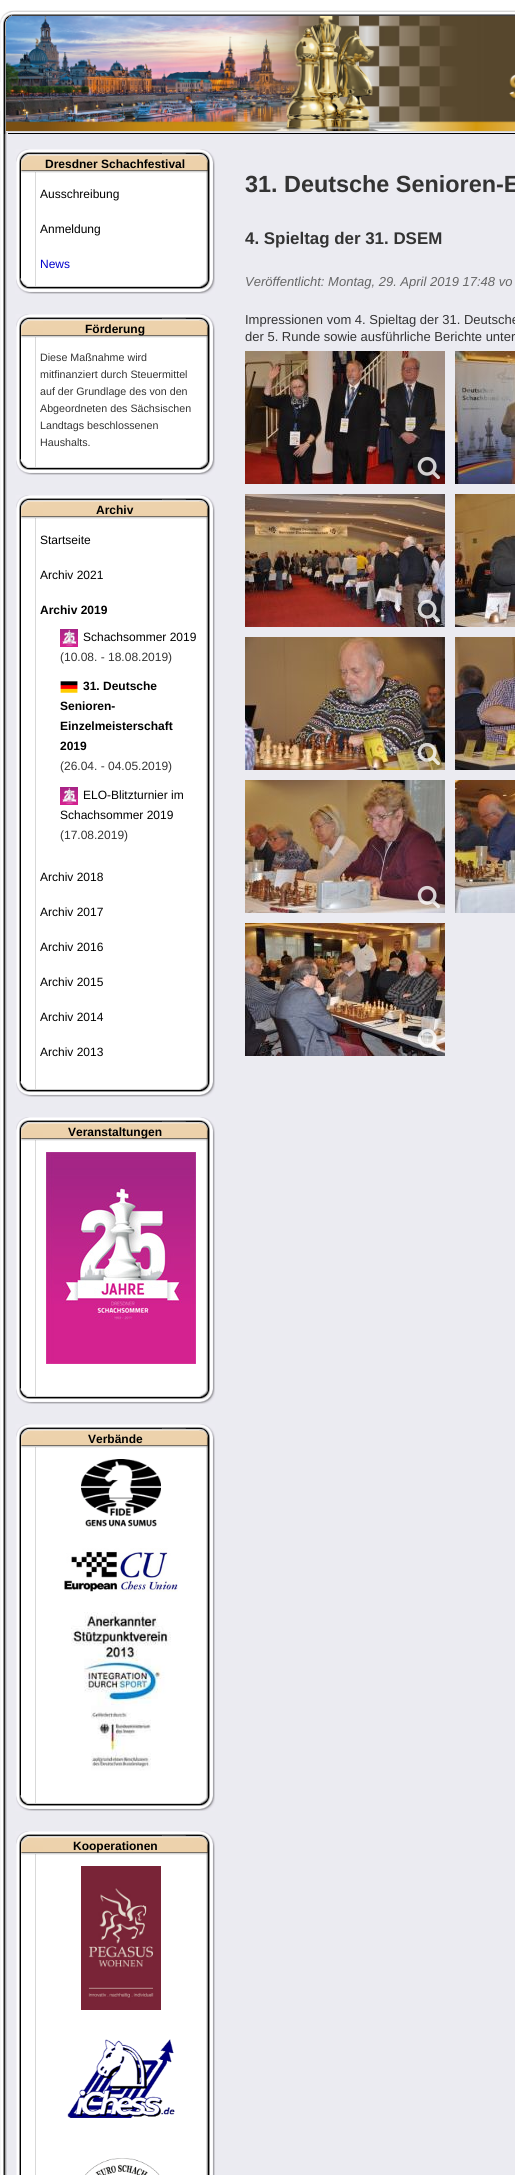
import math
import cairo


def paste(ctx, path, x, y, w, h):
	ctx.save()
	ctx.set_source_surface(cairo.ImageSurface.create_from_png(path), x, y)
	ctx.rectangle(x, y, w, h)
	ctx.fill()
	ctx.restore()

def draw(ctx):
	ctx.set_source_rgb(1, 1, 1)
	ctx.paint()
	paste(ctx, 'media/2.png', 6, 16, 509, 115)
	paste(ctx, 'media/1.png', 0, 10, 515, 124)
	paste(ctx, 'media/3.png', 0, 134, 515, 2041)
	paste(ctx, 'media/4.png', 15, 149, 200, 145)
	paste(ctx, 'media/5.png', 16, 278, 199, 16)
	paste(ctx, 'media/6.png', 16, 149, 199, 24)
	ctx.select_font_face('Liberation Sans', cairo.FONT_SLANT_NORMAL, cairo.FONT_WEIGHT_BOLD)
	ctx.set_font_size(12)
	ctx.set_source_rgb(0, 0, 0)
	ctx.move_to(45, 168)
	ctx.show_text('Dresdner Schachfestival')
	ctx.select_font_face('Liberation Sans')
	ctx.move_to(40, 198)
	ctx.show_text('Ausschreibung')
	ctx.move_to(40, 233)
	ctx.show_text('Anmeldung')
	ctx.set_source_rgb(0, 0, 0.8)
	ctx.move_to(40, 268)
	ctx.show_text('News')
	paste(ctx, 'media/7.png', 15, 314, 200, 161)
	paste(ctx, 'media/5.png', 16, 459, 199, 16)
	paste(ctx, 'media/6.png', 16, 314, 199, 24)
	ctx.select_font_face('Liberation Sans', cairo.FONT_SLANT_NORMAL, cairo.FONT_WEIGHT_BOLD)
	ctx.set_source_rgb(0, 0, 0)
	ctx.move_to(85, 333)
	ctx.show_text('Förderung')
	ctx.select_font_face('Liberation Sans')
	ctx.set_font_size(10.7)
	ctx.set_source_rgb(0.2, 0.2, 0.2)
	for x, y, s in [
		(40, 361, 'Diese Maßnahme wird'),
		(40, 378, 'mitfinanziert durch Steuermittel'),
		(40, 395, 'auf der Grundlage des von den'),
		(40, 412, 'Abgeordneten des Sächsischen'),
		(40, 429, 'Landtags beschlossenen'),
		(40, 446, 'Haushalts.'),
	]:
		ctx.move_to(x, y)
		ctx.show_text(s)
	paste(ctx, 'media/8.png', 15, 495, 200, 602)
	paste(ctx, 'media/5.png', 16, 1081, 199, 16)
	paste(ctx, 'media/6.png', 16, 495, 199, 24)
	ctx.select_font_face('Liberation Sans', cairo.FONT_SLANT_NORMAL, cairo.FONT_WEIGHT_BOLD)
	ctx.set_font_size(12)
	ctx.set_source_rgb(0, 0, 0)
	ctx.move_to(96, 514)
	ctx.show_text('Archiv')
	ctx.select_font_face('Liberation Sans')
	ctx.move_to(40, 544)
	ctx.show_text('Startseite')
	ctx.move_to(40, 579)
	ctx.show_text('Archiv 2021')
	ctx.select_font_face('Liberation Sans', cairo.FONT_SLANT_NORMAL, cairo.FONT_WEIGHT_BOLD)
	ctx.move_to(40, 614)
	ctx.show_text('Archiv 2019')
	paste(ctx, 'media/9.png', 60, 629, 18, 18)
	ctx.select_font_face('Liberation Sans')
	ctx.move_to(83, 641)
	ctx.show_text('Schachsommer 2019')
	ctx.set_source_rgb(0.2, 0.2, 0.2)
	ctx.move_to(60, 661)
	ctx.show_text('(10.08. - 18.08.2019)')
	paste(ctx, 'media/10.png', 60, 681, 18, 12)
	ctx.select_font_face('Liberation Sans', cairo.FONT_SLANT_NORMAL, cairo.FONT_WEIGHT_BOLD)
	ctx.set_source_rgb(0, 0, 0)
	for x, y, s in [
		(83, 690, '31. Deutsche'),
		(60, 710, 'Senioren-'),
		(60, 730, 'Einzelmeisterschaft'),
		(60, 750, '2019'),
	]:
		ctx.move_to(x, y)
		ctx.show_text(s)
	ctx.select_font_face('Liberation Sans')
	ctx.set_source_rgb(0.2, 0.2, 0.2)
	ctx.move_to(60, 770)
	ctx.show_text('(26.04. - 04.05.2019)')
	paste(ctx, 'media/9.png', 60, 787, 18, 18)
	ctx.set_source_rgb(0, 0, 0)
	ctx.move_to(83, 799)
	ctx.show_text('ELO-Blitzturnier im')
	ctx.move_to(60, 819)
	ctx.show_text('Schachsommer 2019')
	ctx.set_source_rgb(0.2, 0.2, 0.2)
	ctx.move_to(60, 839)
	ctx.show_text('(17.08.2019)')
	ctx.set_source_rgb(0, 0, 0)
	for x, y, s in [
		(40, 881, 'Archiv 2018'),
		(40, 916, 'Archiv 2017'),
		(40, 951, 'Archiv 2016'),
		(40, 986, 'Archiv 2015'),
		(40, 1021, 'Archiv 2014'),
		(40, 1056, 'Archiv 2013'),
	]:
		ctx.move_to(x, y)
		ctx.show_text(s)
	paste(ctx, 'media/11.png', 15, 1117, 200, 287)
	paste(ctx, 'media/5.png', 16, 1388, 199, 16)
	paste(ctx, 'media/6.png', 16, 1117, 199, 24)
	ctx.select_font_face('Liberation Sans', cairo.FONT_SLANT_NORMAL, cairo.FONT_WEIGHT_BOLD)
	ctx.move_to(68, 1136)
	ctx.show_text('Veranstaltungen')
	paste(ctx, 'media/12.png', 46, 1152, 150, 212)
	paste(ctx, 'media/13.png', 15, 1424, 200, 387)
	paste(ctx, 'media/5.png', 16, 1795, 199, 16)
	paste(ctx, 'media/6.png', 16, 1424, 199, 24)
	ctx.move_to(88, 1443)
	ctx.show_text('Verbände')
	paste(ctx, 'media/14.png', 81, 1459, 80, 68)
	paste(ctx, 'media/15.png', 64, 1548, 114, 44)
	paste(ctx, 'media/16.png', 71, 1612, 100, 159)
	paste(ctx, 'media/17.png', 15, 1831, 200, 344)
	paste(ctx, 'media/6.png', 16, 1831, 199, 24)
	ctx.move_to(73, 1850)
	ctx.show_text('Kooperationen')
	paste(ctx, 'media/18.png', 81, 1866, 80, 144)
	paste(ctx, 'media/19.png', 67, 2039, 108, 79)
	paste(ctx, 'media/20.png', 85, 2158, 75, 17)
	ctx.set_font_size(23.4)
	ctx.set_source_rgb(0.2, 0.2, 0.2)
	ctx.move_to(245, 192)
	ctx.show_text('31. Deutsche Senioren-E')
	ctx.set_font_size(16.9)
	ctx.move_to(245, 244)
	ctx.show_text('4. Spieltag der 31. DSEM')
	ctx.select_font_face('Liberation Sans', cairo.FONT_SLANT_ITALIC)
	ctx.set_font_size(13)
	ctx.set_source_rgb(0.4, 0.4, 0.4)
	ctx.move_to(245, 286)
	ctx.show_text('Veröffentlicht: Montag, 29. April 2019 17:48 vo')
	ctx.select_font_face('Liberation Sans')
	ctx.set_source_rgb(0.2, 0.2, 0.2)
	ctx.move_to(245, 324)
	ctx.show_text('Impressionen vom 4. Spieltag der 31. Deutsche')
	ctx.move_to(245, 341)
	ctx.show_text('der 5. Runde sowie ausführliche Berichte unter')
	paste(ctx, 'media/21.png', 245, 351, 200, 133)
	paste(ctx, 'media/22.png', 417, 456, 23, 23)
	paste(ctx, 'media/23.png', 455, 351, 60, 133)
	paste(ctx, 'media/24.png', 245, 494, 200, 133)
	paste(ctx, 'media/25.png', 417, 599, 23, 23)
	paste(ctx, 'media/26.png', 455, 494, 60, 133)
	paste(ctx, 'media/27.png', 245, 637, 200, 133)
	paste(ctx, 'media/28.png', 417, 742, 23, 23)
	paste(ctx, 'media/29.png', 455, 637, 60, 133)
	paste(ctx, 'media/30.png', 245, 780, 200, 133)
	paste(ctx, 'media/31.png', 417, 885, 23, 23)
	paste(ctx, 'media/32.png', 455, 780, 60, 133)
	paste(ctx, 'media/33.png', 245, 923, 200, 133)
	paste(ctx, 'media/34.png', 417, 1029, 23, 22)


surface = cairo.ImageSurface(cairo.FORMAT_RGB24, 515, 2175)
ctx = cairo.Context(surface)
options = cairo.FontOptions()
options.set_hint_metrics(cairo.HINT_METRICS_OFF)
options.set_hint_style(cairo.HINT_STYLE_NONE)
ctx.set_font_options(options)
ctx.set_miter_limit(4)
draw(ctx)
surface.write_to_png('image.png')
